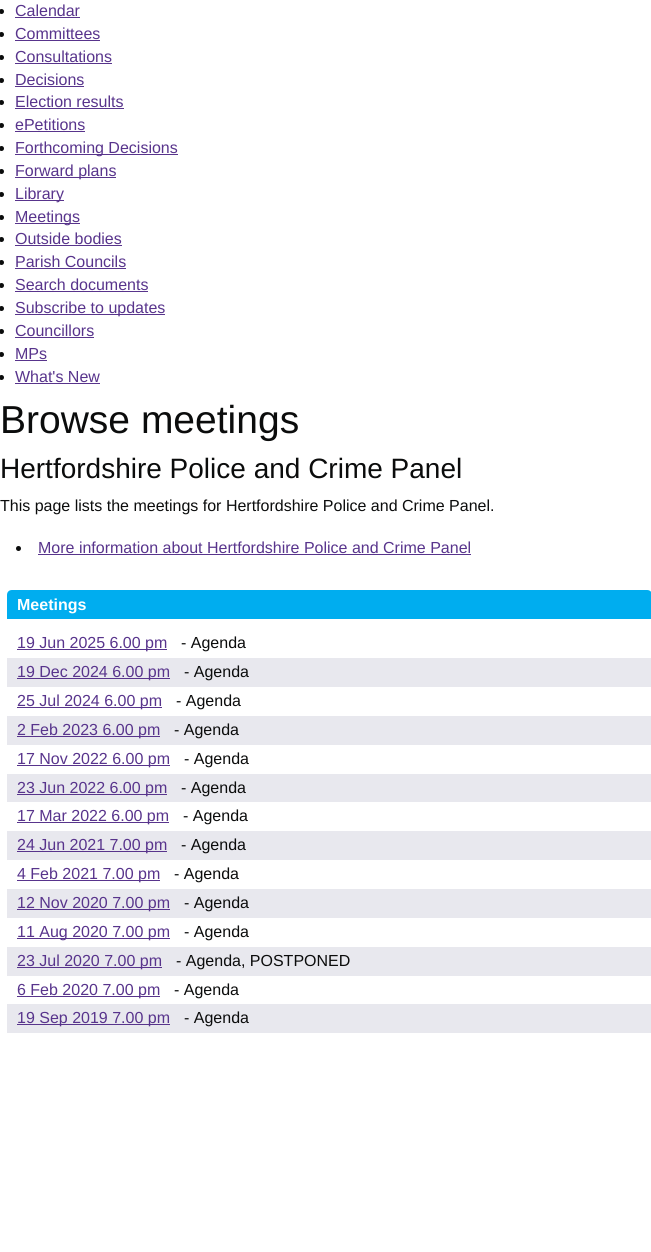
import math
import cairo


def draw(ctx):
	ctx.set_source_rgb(1, 1, 1)
	ctx.paint()
	ctx.set_source_rgb(0.043, 0.047, 0.047)
	ctx.arc(1.5, 11.5, 2.5, 0, 2 * math.pi)
	ctx.fill()
	ctx.select_font_face('Liberation Sans')
	ctx.set_font_size(16)
	ctx.set_source_rgb(0.345, 0.204, 0.549)
	ctx.move_to(15, 16)
	ctx.show_text('Calendar')
	ctx.rectangle(15, 17, 65, 1)
	ctx.fill()
	ctx.set_source_rgb(0.043, 0.047, 0.047)
	ctx.arc(1.5, 34.5, 2.5, 0, 2 * math.pi)
	ctx.fill()
	ctx.set_source_rgb(0.345, 0.204, 0.549)
	ctx.move_to(15, 39)
	ctx.show_text('Committees')
	ctx.rectangle(15, 40, 85, 1)
	ctx.fill()
	ctx.set_source_rgb(0.043, 0.047, 0.047)
	ctx.arc(1.5, 57.5, 2.5, 0, 2 * math.pi)
	ctx.fill()
	ctx.set_source_rgb(0.345, 0.204, 0.549)
	ctx.move_to(15, 62)
	ctx.show_text('Consultations')
	ctx.rectangle(15, 63, 97, 1)
	ctx.fill()
	ctx.set_source_rgb(0.043, 0.047, 0.047)
	ctx.arc(1.5, 80.5, 2.5, 0, 2 * math.pi)
	ctx.fill()
	ctx.set_source_rgb(0.345, 0.204, 0.549)
	ctx.move_to(15, 85)
	ctx.show_text('Decisions')
	ctx.rectangle(15, 86, 69, 1)
	ctx.fill()
	ctx.set_source_rgb(0.043, 0.047, 0.047)
	ctx.arc(1.5, 102.5, 2.5, 0, 2 * math.pi)
	ctx.fill()
	ctx.set_source_rgb(0.345, 0.204, 0.549)
	ctx.move_to(15, 107)
	ctx.show_text('Election results')
	ctx.rectangle(15, 108, 109, 1)
	ctx.fill()
	ctx.set_source_rgb(0.043, 0.047, 0.047)
	ctx.arc(1.5, 125.5, 2.5, 0, 2 * math.pi)
	ctx.fill()
	ctx.set_source_rgb(0.345, 0.204, 0.549)
	ctx.move_to(15, 130)
	ctx.show_text('ePetitions')
	ctx.rectangle(15, 131, 70, 1)
	ctx.fill()
	ctx.set_source_rgb(0.043, 0.047, 0.047)
	ctx.arc(1.5, 148.5, 2.5, 0, 2 * math.pi)
	ctx.fill()
	ctx.set_source_rgb(0.345, 0.204, 0.549)
	ctx.rectangle(15, 154, 163, 1)
	ctx.fill()
	ctx.move_to(15, 153)
	ctx.show_text('Forthcoming Decisions')
	ctx.set_source_rgb(0.043, 0.047, 0.047)
	ctx.new_path()
	ctx.arc(1.5, 171.5, 2.5, 0, 2 * math.pi)
	ctx.fill()
	ctx.set_source_rgb(0.345, 0.204, 0.549)
	ctx.rectangle(15, 177, 101, 1)
	ctx.fill()
	ctx.move_to(15, 176)
	ctx.show_text('Forward plans')
	ctx.set_source_rgb(0.043, 0.047, 0.047)
	ctx.new_path()
	ctx.arc(1.5, 194.5, 2.5, 0, 2 * math.pi)
	ctx.fill()
	ctx.set_source_rgb(0.345, 0.204, 0.549)
	ctx.rectangle(15, 200, 49, 1)
	ctx.fill()
	ctx.move_to(15, 199)
	ctx.show_text('Library')
	ctx.set_source_rgb(0.043, 0.047, 0.047)
	ctx.new_path()
	ctx.arc(1.5, 217.5, 2.5, 0, 2 * math.pi)
	ctx.fill()
	ctx.set_source_rgb(0.345, 0.204, 0.549)
	ctx.rectangle(15, 223, 65, 1)
	ctx.fill()
	ctx.move_to(15, 222)
	ctx.show_text('Meetings')
	ctx.set_source_rgb(0.043, 0.047, 0.047)
	ctx.new_path()
	ctx.arc(1.5, 239.5, 2.5, 0, 2 * math.pi)
	ctx.fill()
	ctx.set_source_rgb(0.345, 0.204, 0.549)
	ctx.move_to(15, 244)
	ctx.show_text('Outside bodies')
	ctx.rectangle(15, 245, 107, 1)
	ctx.fill()
	ctx.set_source_rgb(0.043, 0.047, 0.047)
	ctx.arc(1.5, 262.5, 2.5, 0, 2 * math.pi)
	ctx.fill()
	ctx.set_source_rgb(0.345, 0.204, 0.549)
	ctx.move_to(15, 267)
	ctx.show_text('Parish Councils')
	ctx.rectangle(15, 268, 111, 1)
	ctx.fill()
	ctx.set_source_rgb(0.043, 0.047, 0.047)
	ctx.arc(1.5, 285.5, 2.5, 0, 2 * math.pi)
	ctx.fill()
	ctx.set_source_rgb(0.345, 0.204, 0.549)
	ctx.move_to(15, 290)
	ctx.show_text('Search documents')
	ctx.rectangle(15, 291, 133, 1)
	ctx.fill()
	ctx.set_source_rgb(0.043, 0.047, 0.047)
	ctx.arc(1.5, 308.5, 2.5, 0, 2 * math.pi)
	ctx.fill()
	ctx.set_source_rgb(0.345, 0.204, 0.549)
	ctx.rectangle(15, 314, 150, 1)
	ctx.fill()
	ctx.move_to(15, 313)
	ctx.show_text('Subscribe to updates')
	ctx.set_source_rgb(0.043, 0.047, 0.047)
	ctx.new_path()
	ctx.arc(1.5, 331.5, 2.5, 0, 2 * math.pi)
	ctx.fill()
	ctx.set_source_rgb(0.345, 0.204, 0.549)
	ctx.move_to(15, 336)
	ctx.show_text('Councillors')
	ctx.rectangle(15, 337, 79, 1)
	ctx.fill()
	ctx.set_source_rgb(0.043, 0.047, 0.047)
	ctx.arc(1.5, 354.5, 2.5, 0, 2 * math.pi)
	ctx.fill()
	ctx.set_source_rgb(0.345, 0.204, 0.549)
	ctx.move_to(15, 359)
	ctx.show_text('MPs')
	ctx.rectangle(15, 360, 32, 1)
	ctx.fill()
	ctx.set_source_rgb(0.043, 0.047, 0.047)
	ctx.arc(1.5, 377.5, 2.5, 0, 2 * math.pi)
	ctx.fill()
	ctx.set_source_rgb(0.345, 0.204, 0.549)
	ctx.move_to(15, 382)
	ctx.show_text('What\'s New')
	ctx.rectangle(15, 383, 85, 1)
	ctx.fill()
	ctx.set_font_size(39)
	ctx.set_source_rgb(0.043, 0.047, 0.047)
	ctx.move_to(0, 433)
	ctx.show_text('Browse meetings')
	ctx.set_font_size(28)
	ctx.move_to(0, 478)
	ctx.show_text('Hertfordshire Police and Crime Panel')
	ctx.set_font_size(16)
	ctx.move_to(0, 511)
	ctx.show_text('This page lists the meetings for Hertfordshire Police and Crime Panel.')
	ctx.new_path()
	ctx.arc(18.5, 548.5, 2.5, 0, 2 * math.pi)
	ctx.fill()
	ctx.set_source_rgb(0.345, 0.204, 0.549)
	ctx.move_to(38, 553)
	ctx.show_text('More information about Hertfordshire Police and Crime Panel')
	ctx.rectangle(38, 554, 433, 1)
	ctx.fill()
	ctx.set_source_rgb(0, 0.678, 0.937)
	ctx.new_path()
	ctx.move_to(12, 590)
	ctx.line_to(647, 590)
	ctx.curve_to(650, 590, 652, 592, 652, 595)
	ctx.line_to(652, 619)
	ctx.line_to(7, 619)
	ctx.line_to(7, 595)
	ctx.curve_to(7, 592, 9, 590, 12, 590)
	ctx.close_path()
	ctx.fill()
	ctx.select_font_face('Liberation Sans', cairo.FONT_SLANT_NORMAL, cairo.FONT_WEIGHT_BOLD)
	ctx.set_source_rgb(1, 1, 1)
	ctx.move_to(17, 610)
	ctx.show_text('Meetings')
	ctx.set_source_rgb(0.345, 0.204, 0.549)
	ctx.rectangle(17, 649, 150, 1)
	ctx.fill()
	ctx.select_font_face('Liberation Sans')
	ctx.move_to(17, 648)
	ctx.show_text('19 Jun 2025 6.00 pm')
	ctx.set_source_rgb(0.043, 0.047, 0.047)
	ctx.move_to(181, 648)
	ctx.show_text('- Agenda')
	ctx.set_source_rgb(0.91, 0.91, 0.933)
	ctx.rectangle(7, 658, 644, 29)
	ctx.fill()
	ctx.set_source_rgb(0.345, 0.204, 0.549)
	ctx.rectangle(17, 678, 153, 1)
	ctx.fill()
	ctx.move_to(17, 677)
	ctx.show_text('19 Dec 2024 6.00 pm')
	ctx.set_source_rgb(0.043, 0.047, 0.047)
	ctx.move_to(184, 677)
	ctx.show_text('- Agenda')
	ctx.set_source_rgb(0.345, 0.204, 0.549)
	ctx.rectangle(17, 707, 145, 1)
	ctx.fill()
	ctx.move_to(17, 706)
	ctx.show_text('25 Jul 2024 6.00 pm')
	ctx.set_source_rgb(0.043, 0.047, 0.047)
	ctx.move_to(176, 706)
	ctx.show_text('- Agenda')
	ctx.set_source_rgb(0.91, 0.91, 0.933)
	ctx.rectangle(7, 716, 644, 29)
	ctx.fill()
	ctx.set_source_rgb(0.345, 0.204, 0.549)
	ctx.rectangle(17, 736, 143, 1)
	ctx.fill()
	ctx.move_to(17, 735)
	ctx.show_text('2 Feb 2023 6.00 pm')
	ctx.set_source_rgb(0.043, 0.047, 0.047)
	ctx.move_to(174, 735)
	ctx.show_text('- Agenda')
	ctx.set_source_rgb(0.345, 0.204, 0.549)
	ctx.rectangle(17, 765, 153, 1)
	ctx.fill()
	ctx.move_to(17, 764)
	ctx.show_text('17 Nov 2022 6.00 pm')
	ctx.set_source_rgb(0.043, 0.047, 0.047)
	ctx.move_to(184, 764)
	ctx.show_text('- Agenda')
	ctx.set_source_rgb(0.91, 0.91, 0.933)
	ctx.rectangle(7, 774, 644, 28)
	ctx.fill()
	ctx.set_source_rgb(0.345, 0.204, 0.549)
	ctx.rectangle(17, 794, 150, 1)
	ctx.fill()
	ctx.move_to(17, 793)
	ctx.show_text('23 Jun 2022 6.00 pm')
	ctx.set_source_rgb(0.043, 0.047, 0.047)
	ctx.move_to(181, 793)
	ctx.show_text('- Agenda')
	ctx.set_source_rgb(0.345, 0.204, 0.549)
	ctx.rectangle(17, 822, 152, 1)
	ctx.fill()
	ctx.move_to(17, 821)
	ctx.show_text('17 Mar 2022 6.00 pm')
	ctx.set_source_rgb(0.043, 0.047, 0.047)
	ctx.move_to(183, 821)
	ctx.show_text('- Agenda')
	ctx.set_source_rgb(0.91, 0.91, 0.933)
	ctx.rectangle(7, 831, 644, 29)
	ctx.fill()
	ctx.set_source_rgb(0.345, 0.204, 0.549)
	ctx.rectangle(17, 851, 150, 1)
	ctx.fill()
	ctx.move_to(17, 850)
	ctx.show_text('24 Jun 2021 7.00 pm')
	ctx.set_source_rgb(0.043, 0.047, 0.047)
	ctx.move_to(181, 850)
	ctx.show_text('- Agenda')
	ctx.set_source_rgb(0.345, 0.204, 0.549)
	ctx.rectangle(17, 880, 143, 1)
	ctx.fill()
	ctx.move_to(17, 879)
	ctx.show_text('4 Feb 2021 7.00 pm')
	ctx.set_source_rgb(0.043, 0.047, 0.047)
	ctx.move_to(174, 879)
	ctx.show_text('- Agenda')
	ctx.set_source_rgb(0.91, 0.91, 0.933)
	ctx.rectangle(7, 889, 644, 29)
	ctx.fill()
	ctx.set_source_rgb(0.345, 0.204, 0.549)
	ctx.rectangle(17, 909, 153, 1)
	ctx.fill()
	ctx.move_to(17, 908)
	ctx.show_text('12 Nov 2020 7.00 pm')
	ctx.set_source_rgb(0.043, 0.047, 0.047)
	ctx.move_to(184, 908)
	ctx.show_text('- Agenda')
	ctx.set_source_rgb(0.345, 0.204, 0.549)
	ctx.rectangle(17, 938, 153, 1)
	ctx.fill()
	ctx.move_to(17, 937)
	ctx.show_text('11 Aug 2020 7.00 pm')
	ctx.set_source_rgb(0.043, 0.047, 0.047)
	ctx.move_to(184, 937)
	ctx.show_text('- Agenda')
	ctx.set_source_rgb(0.91, 0.91, 0.933)
	ctx.rectangle(7, 947, 644, 29)
	ctx.fill()
	ctx.set_source_rgb(0.345, 0.204, 0.549)
	ctx.rectangle(17, 967, 145, 1)
	ctx.fill()
	ctx.move_to(17, 966)
	ctx.show_text('23 Jul 2020 7.00 pm')
	ctx.set_source_rgb(0.043, 0.047, 0.047)
	ctx.move_to(176, 966)
	ctx.show_text('- Agenda, POSTPONED')
	ctx.set_source_rgb(0.345, 0.204, 0.549)
	ctx.rectangle(17, 996, 143, 1)
	ctx.fill()
	ctx.move_to(17, 995)
	ctx.show_text('6 Feb 2020 7.00 pm')
	ctx.set_source_rgb(0.043, 0.047, 0.047)
	ctx.move_to(174, 995)
	ctx.show_text('- Agenda')
	ctx.set_source_rgb(0.91, 0.91, 0.933)
	ctx.rectangle(7, 1004, 644, 29)
	ctx.fill()
	ctx.set_source_rgb(0.345, 0.204, 0.549)
	ctx.rectangle(17, 1024, 153, 1)
	ctx.fill()
	ctx.move_to(17, 1023)
	ctx.show_text('19 Sep 2019 7.00 pm')
	ctx.set_source_rgb(0.043, 0.047, 0.047)
	ctx.move_to(184, 1023)
	ctx.show_text('- Agenda')


surface = cairo.ImageSurface(cairo.FORMAT_RGB24, 651, 1252)
ctx = cairo.Context(surface)
options = cairo.FontOptions()
options.set_hint_metrics(cairo.HINT_METRICS_OFF)
options.set_hint_style(cairo.HINT_STYLE_NONE)
ctx.set_font_options(options)
ctx.set_miter_limit(4)
draw(ctx)
surface.write_to_png('image.png')
